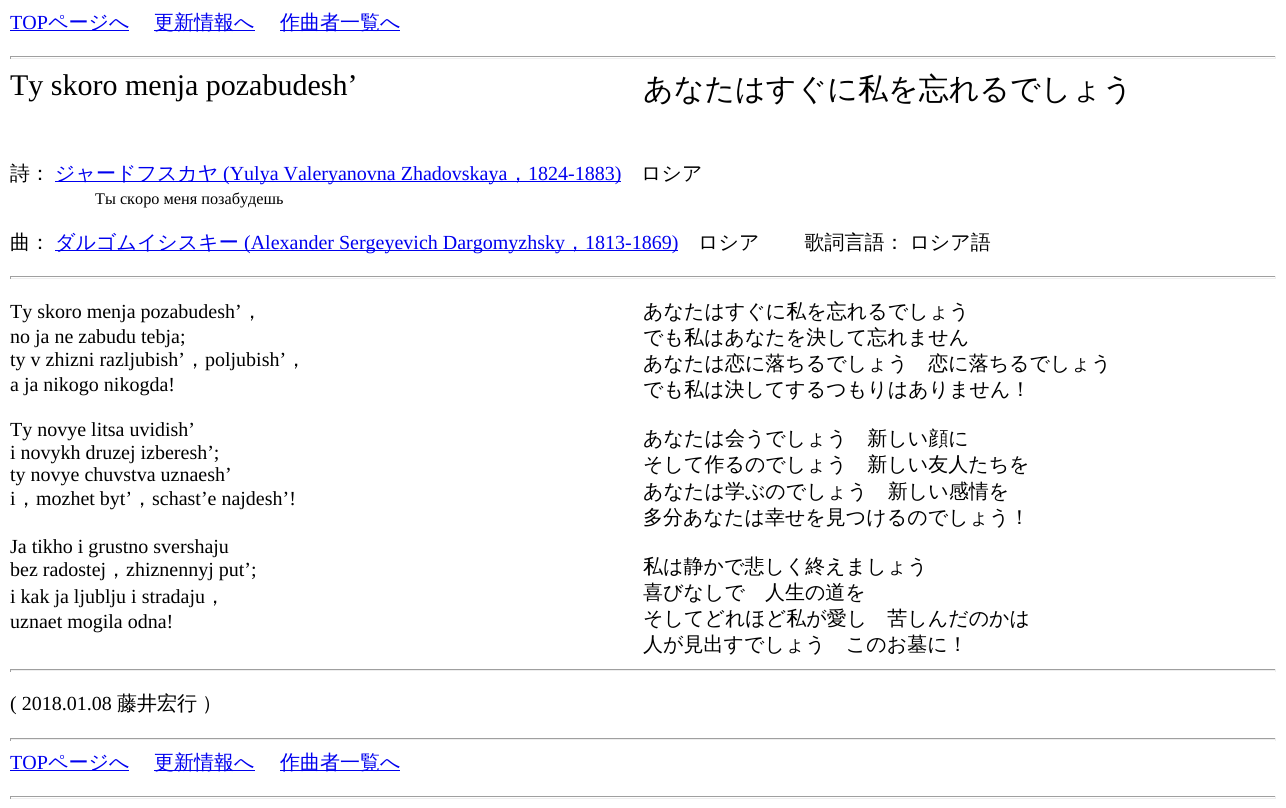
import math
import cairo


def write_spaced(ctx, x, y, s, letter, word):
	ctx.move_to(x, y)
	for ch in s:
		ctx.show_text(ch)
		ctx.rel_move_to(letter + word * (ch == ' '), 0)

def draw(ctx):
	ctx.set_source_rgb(1, 1, 1)
	ctx.paint()
	ctx.select_font_face('Liberation Serif')
	ctx.set_font_size(20)
	ctx.set_source_rgb(0, 0, 0.933)
	ctx.move_to(10, 29)
	ctx.show_text('TOP')
	ctx.rectangle(10, 30, 119, 1)
	ctx.fill()
	ctx.select_font_face('WenQuanYi Zen Hei Medium')
	ctx.move_to(48, 29)
	ctx.show_text('ページへ')
	ctx.rectangle(154, 30, 101, 1)
	ctx.fill()
	ctx.move_to(154, 29)
	ctx.show_text('更新情報へ')
	ctx.rectangle(280, 30, 120, 1)
	ctx.fill()
	ctx.move_to(280, 29)
	ctx.show_text('作曲者一覧へ')
	ctx.set_source_rgb(0.624, 0.624, 0.624)
	ctx.rectangle(10, 56, 1266, 1)
	ctx.fill()
	ctx.set_source_rgb(0.933, 0.933, 0.933)
	ctx.rectangle(1275, 56, 1, 3)
	ctx.rectangle(10, 58, 1266, 1)
	ctx.fill()
	ctx.set_source_rgb(0.624, 0.624, 0.624)
	ctx.rectangle(10, 56, 1, 3)
	ctx.fill()
	ctx.select_font_face('Liberation Serif')
	ctx.set_font_size(30)
	ctx.set_source_rgb(0, 0, 0)
	ctx.move_to(10, 95)
	ctx.show_text('Ty skoro menja pozabudesh’')
	ctx.select_font_face('WenQuanYi Zen Hei Medium')
	ctx.move_to(643, 99)
	ctx.show_text('あなたはすぐに私を忘れるでしょう')
	ctx.set_font_size(20)
	ctx.move_to(10, 180)
	ctx.show_text('詩：')
	ctx.set_source_rgb(0, 0, 0.933)
	ctx.rectangle(55, 181, 566, 1)
	ctx.fill()
	ctx.move_to(55, 180)
	ctx.show_text('ジャードフスカヤ')
	ctx.select_font_face('Liberation Serif')
	ctx.move_to(223, 180)
	ctx.show_text('(Yulya Valeryanovna Zhadovskaya')
	ctx.select_font_face('WenQuanYi Zen Hei Medium')
	ctx.move_to(508, 180)
	ctx.show_text('，')
	ctx.select_font_face('Liberation Serif')
	ctx.move_to(528, 180)
	ctx.show_text('1824-1883)')
	ctx.select_font_face('WenQuanYi Zen Hei Medium')
	ctx.set_source_rgb(0, 0, 0)
	ctx.move_to(641, 180)
	ctx.show_text('ロシア')
	ctx.select_font_face('Liberation Serif')
	ctx.set_font_size(16.25)
	ctx.move_to(95, 204)
	ctx.show_text('Ты скоро меня позабудешь')
	ctx.select_font_face('WenQuanYi Zen Hei Medium')
	ctx.set_font_size(20)
	ctx.move_to(10, 249)
	ctx.show_text('曲：')
	ctx.set_source_rgb(0, 0, 0.933)
	ctx.rectangle(55, 250, 623, 1)
	ctx.fill()
	ctx.move_to(55, 249)
	ctx.show_text('ダルゴムイシスキー')
	ctx.select_font_face('Liberation Serif')
	ctx.move_to(244, 249)
	ctx.show_text('(Alexander Sergeyevich Dargomyzhsky')
	ctx.select_font_face('WenQuanYi Zen Hei Medium')
	ctx.move_to(565, 249)
	ctx.show_text('，')
	ctx.select_font_face('Liberation Serif')
	ctx.move_to(585, 249)
	ctx.show_text('1813-1869)')
	ctx.select_font_face('WenQuanYi Zen Hei Medium')
	ctx.set_source_rgb(0, 0, 0)
	write_spaced(ctx, 698, 249, 'ロシア 　　歌詞言語： ロシア語', 0, -1)
	ctx.set_source_rgb(0.624, 0.624, 0.624)
	ctx.rectangle(10, 276, 1266, 1)
	ctx.fill()
	ctx.set_source_rgb(0.933, 0.933, 0.933)
	ctx.rectangle(1275, 276, 1, 3)
	ctx.rectangle(10, 278, 1266, 1)
	ctx.fill()
	ctx.set_source_rgb(0.624, 0.624, 0.624)
	ctx.rectangle(10, 276, 1, 3)
	ctx.fill()
	ctx.select_font_face('Liberation Serif')
	ctx.set_source_rgb(0, 0, 0)
	ctx.move_to(10, 318)
	ctx.show_text('Ty skoro menja pozabudesh’')
	ctx.select_font_face('WenQuanYi Zen Hei Medium')
	ctx.move_to(242, 318)
	ctx.show_text('，')
	ctx.select_font_face('Liberation Serif')
	ctx.move_to(10, 343)
	ctx.show_text('no ja ne zabudu tebja;')
	ctx.move_to(10, 366)
	ctx.show_text('ty v zhizni razljubish’')
	ctx.select_font_face('WenQuanYi Zen Hei Medium')
	ctx.move_to(185, 366)
	ctx.show_text('，')
	ctx.select_font_face('Liberation Serif')
	ctx.move_to(205, 366)
	ctx.show_text('poljubish’')
	ctx.select_font_face('WenQuanYi Zen Hei Medium')
	ctx.move_to(286, 366)
	ctx.show_text('，')
	ctx.select_font_face('Liberation Serif')
	for x, y, s in [
		(10, 391, 'a ja nikogo nikogda!'),
		(10, 436, 'Ty novye litsa uvidish’'),
		(10, 459, 'i novykh druzej izberesh’;'),
		(10, 481, 'ty novye chuvstva uznaesh’'),
		(10, 505, 'i'),
	]:
		ctx.move_to(x, y)
		ctx.show_text(s)
	ctx.select_font_face('WenQuanYi Zen Hei Medium')
	ctx.move_to(16, 505)
	ctx.show_text('，')
	ctx.select_font_face('Liberation Serif')
	ctx.move_to(36, 505)
	ctx.show_text('mozhet byt’')
	ctx.select_font_face('WenQuanYi Zen Hei Medium')
	ctx.move_to(132, 505)
	ctx.show_text('，')
	ctx.select_font_face('Liberation Serif')
	for x, y, s in [
		(152, 505, 'schast’e najdesh’!'),
		(10, 553, 'Ja tikho i grustno svershaju'),
		(10, 576, 'bez radostej'),
	]:
		ctx.move_to(x, y)
		ctx.show_text(s)
	ctx.select_font_face('WenQuanYi Zen Hei Medium')
	ctx.move_to(106, 576)
	ctx.show_text('，')
	ctx.select_font_face('Liberation Serif')
	ctx.move_to(126, 576)
	ctx.show_text('zhiznennyj put’;')
	ctx.move_to(10, 603)
	ctx.show_text('i kak ja ljublju i stradaju')
	ctx.select_font_face('WenQuanYi Zen Hei Medium')
	ctx.move_to(205, 603)
	ctx.show_text('，')
	ctx.select_font_face('Liberation Serif')
	ctx.move_to(10, 628)
	ctx.show_text('uznaet mogila odna!')
	ctx.select_font_face('WenQuanYi Zen Hei Medium')
	for x, y, s in [
		(643, 318, 'あなたはすぐに私を忘れるでしょう'),
		(643, 344, 'でも私はあなたを決して忘れません'),
		(643, 370, 'あなたは恋に落ちるでしょう　恋に落ちるでしょう'),
		(643, 396, 'でも私は決してするつもりはありません！'),
		(643, 445, 'あなたは会うでしょう　新しい顔に'),
		(643, 471, 'そして作るのでしょう　新しい友人たちを'),
		(643, 498, 'あなたは学ぶのでしょう　新しい感情を'),
		(643, 524, '多分あなたは幸せを見つけるのでしょう！'),
		(643, 573, '私は静かで悲しく終えましょう'),
		(643, 599, '喜びなしで　人生の道を'),
		(643, 625, 'そしてどれほど私が愛し　苦しんだのかは'),
		(643, 651, '人が見出すでしょう　このお墓に！'),
	]:
		ctx.move_to(x, y)
		ctx.show_text(s)
	ctx.set_source_rgb(0.624, 0.624, 0.624)
	ctx.rectangle(10, 669, 1266, 1)
	ctx.fill()
	ctx.set_source_rgb(0.933, 0.933, 0.933)
	ctx.rectangle(1275, 669, 1, 3)
	ctx.rectangle(10, 670, 1266, 1)
	ctx.fill()
	ctx.set_source_rgb(0.624, 0.624, 0.624)
	ctx.rectangle(10, 669, 1, 3)
	ctx.fill()
	ctx.select_font_face('Liberation Serif')
	ctx.set_source_rgb(0, 0, 0)
	ctx.move_to(10, 710)
	ctx.show_text('( 2018.01.08')
	ctx.select_font_face('WenQuanYi Zen Hei Medium')
	write_spaced(ctx, 117, 710, '藤井宏行 ）', 0, -1)
	ctx.set_source_rgb(0.624, 0.624, 0.624)
	ctx.rectangle(10, 738, 1266, 1)
	ctx.fill()
	ctx.set_source_rgb(0.933, 0.933, 0.933)
	ctx.rectangle(1275, 738, 1, 3)
	ctx.rectangle(10, 739, 1266, 1)
	ctx.fill()
	ctx.set_source_rgb(0.624, 0.624, 0.624)
	ctx.rectangle(10, 738, 1, 3)
	ctx.fill()
	ctx.select_font_face('Liberation Serif')
	ctx.set_source_rgb(0, 0, 0.933)
	ctx.move_to(10, 769)
	ctx.show_text('TOP')
	ctx.rectangle(10, 770, 119, 1)
	ctx.fill()
	ctx.select_font_face('WenQuanYi Zen Hei Medium')
	ctx.move_to(48, 769)
	ctx.show_text('ページへ')
	ctx.rectangle(154, 770, 101, 1)
	ctx.fill()
	ctx.move_to(154, 769)
	ctx.show_text('更新情報へ')
	ctx.rectangle(280, 770, 120, 1)
	ctx.fill()
	ctx.move_to(280, 769)
	ctx.show_text('作曲者一覧へ')
	ctx.set_source_rgb(0.624, 0.624, 0.624)
	ctx.rectangle(10, 796, 1266, 1)
	ctx.fill()
	ctx.set_source_rgb(0.933, 0.933, 0.933)
	ctx.rectangle(1275, 796, 1, 3)
	ctx.rectangle(10, 798, 1266, 1)
	ctx.fill()
	ctx.set_source_rgb(0.624, 0.624, 0.624)
	ctx.rectangle(10, 796, 1, 3)
	ctx.fill()


surface = cairo.ImageSurface(cairo.FORMAT_RGB24, 1286, 808)
ctx = cairo.Context(surface)
options = cairo.FontOptions()
options.set_hint_metrics(cairo.HINT_METRICS_OFF)
options.set_hint_style(cairo.HINT_STYLE_NONE)
ctx.set_font_options(options)
ctx.set_miter_limit(4)
draw(ctx)
surface.write_to_png('image.png')
